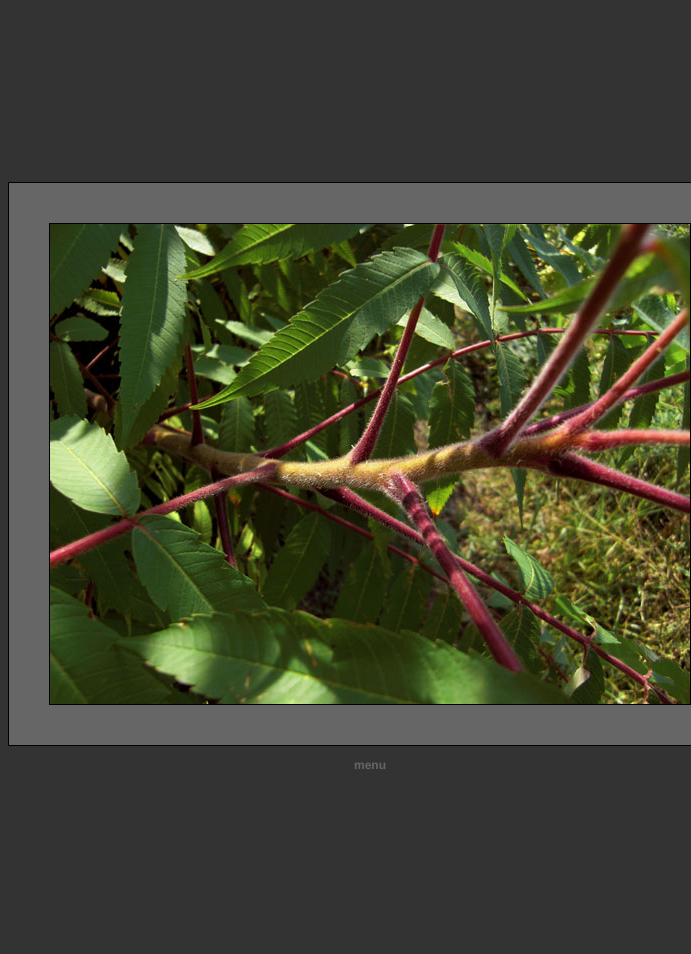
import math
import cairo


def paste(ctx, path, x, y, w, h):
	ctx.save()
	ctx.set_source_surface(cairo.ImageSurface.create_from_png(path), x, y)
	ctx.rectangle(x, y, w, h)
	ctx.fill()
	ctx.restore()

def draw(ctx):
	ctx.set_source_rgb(0.2, 0.2, 0.2)
	ctx.paint()
	ctx.set_source_rgb(0.4, 0.4, 0.4)
	ctx.rectangle(8.5, 182.5, 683, 563)
	ctx.fill_preserve()
	ctx.set_source_rgb(0, 0, 0)
	ctx.set_line_width(1)
	ctx.stroke()
	ctx.rectangle(49.5, 223.5, 641, 481)
	ctx.stroke()
	paste(ctx, 'media/1.png', 50, 224, 640, 480)
	ctx.select_font_face('Liberation Sans', cairo.FONT_SLANT_NORMAL, cairo.FONT_WEIGHT_BOLD)
	ctx.set_font_size(12)
	ctx.set_source_rgb(0.4, 0.4, 0.4)
	ctx.move_to(354, 769)
	ctx.show_text('menu')


surface = cairo.ImageSurface(cairo.FORMAT_RGB24, 691, 954)
ctx = cairo.Context(surface)
options = cairo.FontOptions()
options.set_hint_metrics(cairo.HINT_METRICS_OFF)
options.set_hint_style(cairo.HINT_STYLE_NONE)
ctx.set_font_options(options)
ctx.set_miter_limit(4)
draw(ctx)
surface.write_to_png('image.png')
